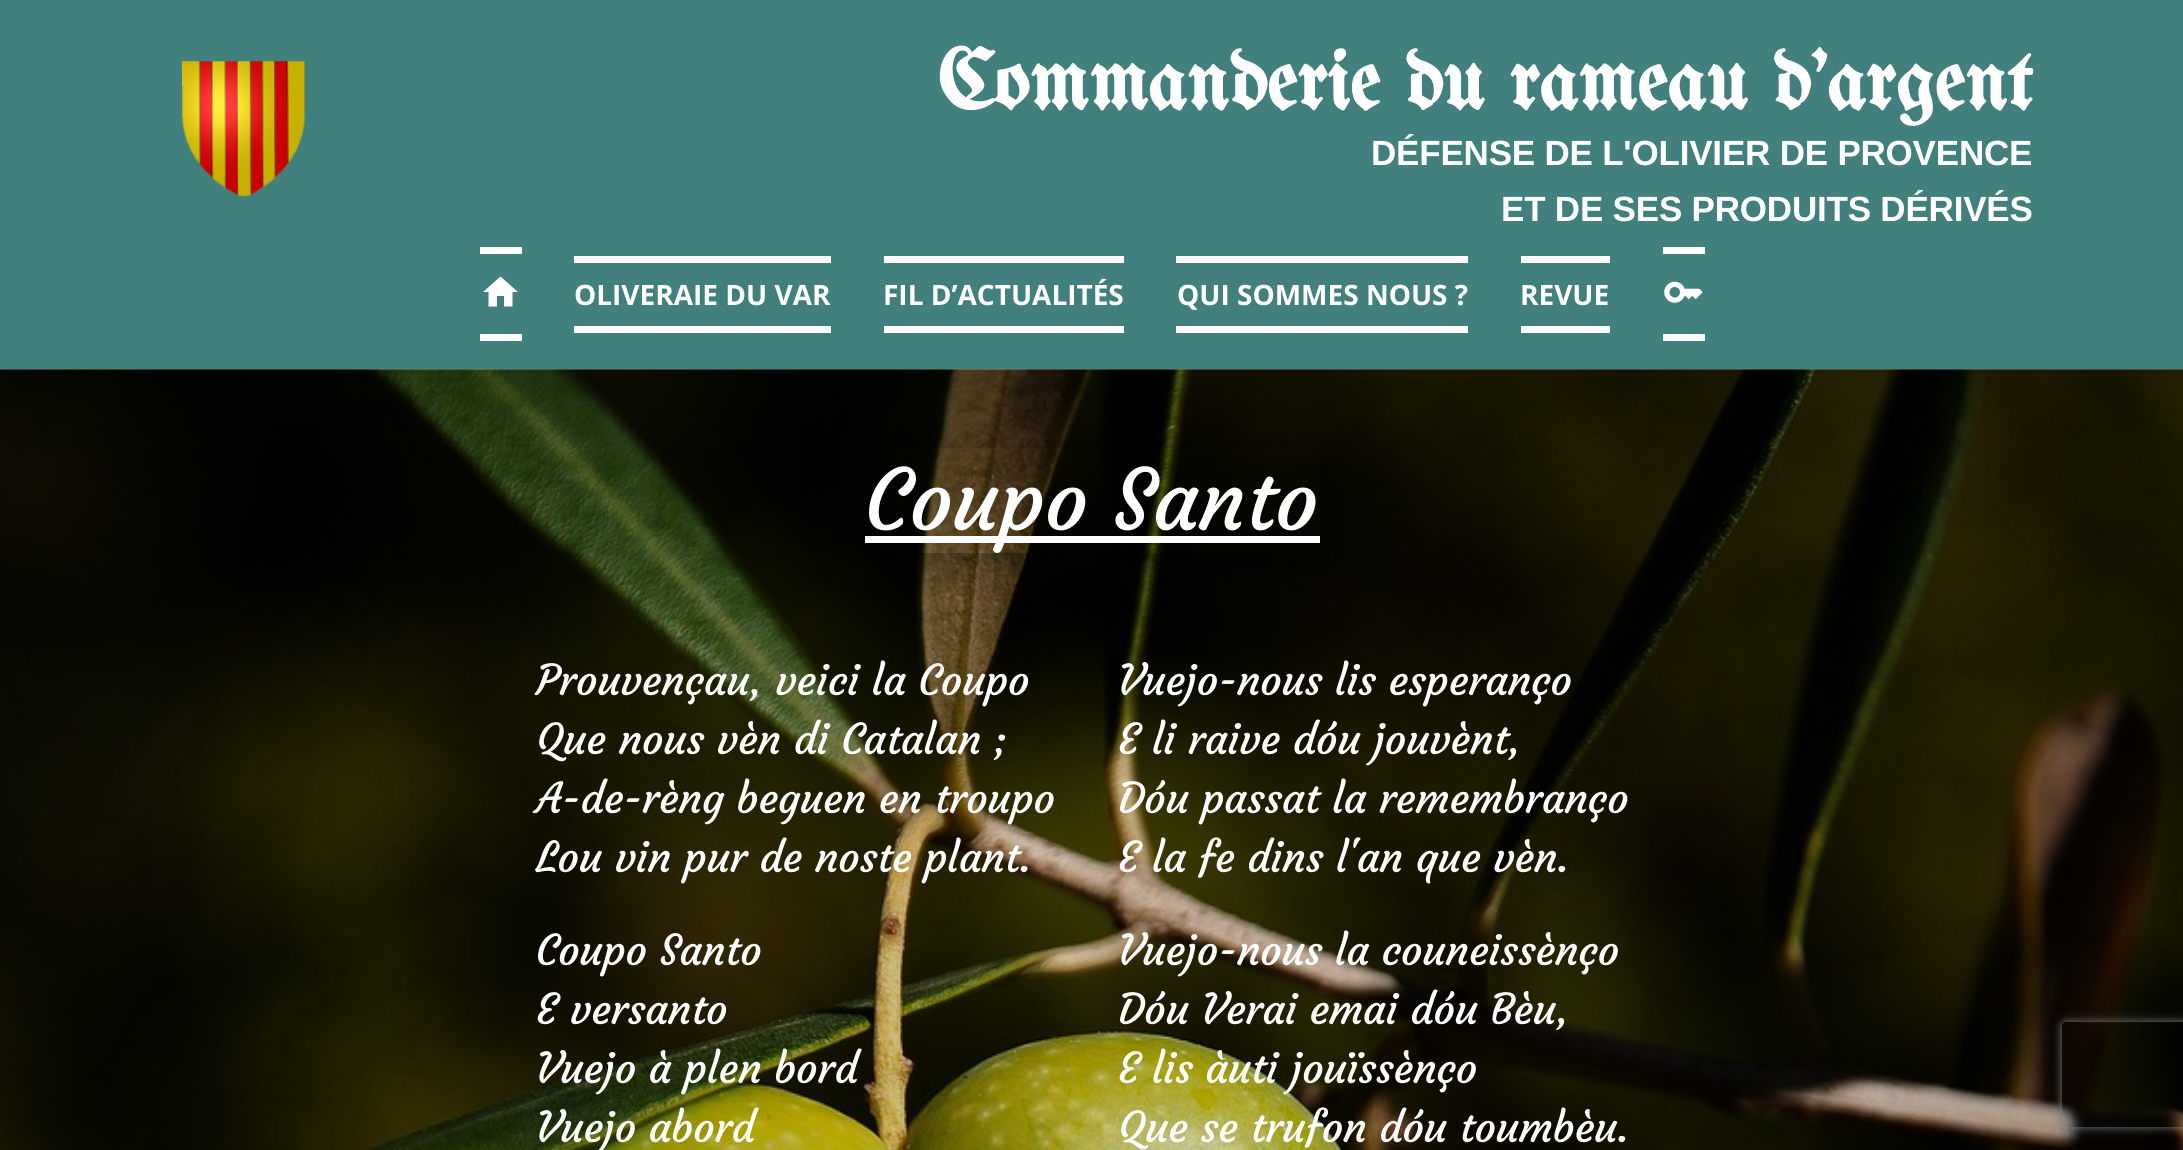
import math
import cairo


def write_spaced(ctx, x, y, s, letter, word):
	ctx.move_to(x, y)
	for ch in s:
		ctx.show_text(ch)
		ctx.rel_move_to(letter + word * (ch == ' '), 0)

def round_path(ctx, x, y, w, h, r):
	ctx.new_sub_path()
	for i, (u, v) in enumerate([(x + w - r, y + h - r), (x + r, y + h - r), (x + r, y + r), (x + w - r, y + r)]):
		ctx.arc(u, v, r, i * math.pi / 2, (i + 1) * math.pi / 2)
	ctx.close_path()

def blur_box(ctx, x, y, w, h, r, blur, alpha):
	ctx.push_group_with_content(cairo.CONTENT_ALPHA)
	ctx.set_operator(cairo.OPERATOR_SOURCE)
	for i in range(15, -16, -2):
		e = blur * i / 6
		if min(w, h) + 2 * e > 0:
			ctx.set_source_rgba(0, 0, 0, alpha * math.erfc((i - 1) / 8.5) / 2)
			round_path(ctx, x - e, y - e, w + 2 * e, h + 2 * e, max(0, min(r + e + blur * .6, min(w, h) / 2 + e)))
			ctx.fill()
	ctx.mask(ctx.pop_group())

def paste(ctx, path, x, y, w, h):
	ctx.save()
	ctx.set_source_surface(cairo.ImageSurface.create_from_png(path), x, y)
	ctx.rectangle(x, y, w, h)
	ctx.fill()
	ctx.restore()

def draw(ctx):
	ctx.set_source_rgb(1, 1, 1)
	ctx.paint()
	ctx.set_source_rgb(0.255, 0.502, 0.49)
	ctx.rectangle(0, 0, 2183, 369)
	ctx.fill()
	paste(ctx, 'media/1.png', 182, 61, 123, 136)
	ctx.select_font_face('UnifrakturMaguntia', cairo.FONT_SLANT_NORMAL, cairo.FONT_WEIGHT_BOLD)
	ctx.set_font_size(84)
	ctx.set_source_rgb(1, 1, 1)
	write_spaced(ctx, 937, 109, 'Commanderie du rameau d\'argent', -0.2, 0)
	ctx.select_font_face('Liberation Sans', cairo.FONT_SLANT_NORMAL, cairo.FONT_WEIGHT_BOLD)
	ctx.set_font_size(35)
	write_spaced(ctx, 1371, 165, 'DÉFENSE DE L\'OLIVIER DE PROVENCE', -0.2, 0)
	write_spaced(ctx, 1501, 221, 'ET DE SES PRODUITS DÉRIVÉS', -0.2, 0)
	ctx.rectangle(480, 247, 42, 7)
	ctx.fill()
	ctx.rectangle(480, 334, 42, 7)
	ctx.fill()
	ctx.new_path()
	ctx.move_to(497, 306.5)
	ctx.line_to(488.5, 306.5)
	ctx.line_to(488.5, 292)
	ctx.line_to(483, 292)
	ctx.line_to(500.5, 276.5)
	ctx.line_to(518, 292)
	ctx.line_to(512.5, 292)
	ctx.line_to(512.5, 306.5)
	ctx.line_to(504, 306.5)
	ctx.line_to(504, 296)
	ctx.line_to(497, 296)
	ctx.close_path()
	ctx.fill()
	ctx.rectangle(574, 256, 257, 7)
	ctx.fill()
	ctx.rectangle(574, 326, 257, 7)
	ctx.fill()
	ctx.select_font_face('Open Sans', cairo.FONT_SLANT_NORMAL, cairo.FONT_WEIGHT_BOLD)
	ctx.set_font_size(28)
	ctx.move_to(574, 305)
	ctx.show_text('OLIVERAIE DU VAR')
	ctx.rectangle(884, 256, 240, 7)
	ctx.fill()
	ctx.rectangle(884, 326, 240, 7)
	ctx.fill()
	ctx.move_to(883, 305)
	ctx.show_text('FIL D’ACTUALITÉS')
	ctx.rectangle(1176, 256, 292, 7)
	ctx.fill()
	ctx.rectangle(1176, 326, 292, 7)
	ctx.fill()
	ctx.move_to(1177, 305)
	ctx.show_text('QUI SOMMES NOUS ?')
	ctx.rectangle(1521, 256, 89, 7)
	ctx.fill()
	ctx.rectangle(1521, 326, 89, 7)
	ctx.fill()
	ctx.move_to(1520, 305)
	ctx.show_text('REVUE')
	ctx.rectangle(1663, 247, 42, 7)
	ctx.fill()
	ctx.rectangle(1663, 334, 42, 7)
	ctx.fill()
	paste(ctx, 'media/2.png', 1664, 281, 39, 22)
	paste(ctx, 'media/3.png', 0, 369, 2183, 781)
	ctx.save()
	ctx.set_fill_rule(cairo.FILL_RULE_EVEN_ODD)
	ctx.new_path()
	ctx.move_to(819, 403)
	ctx.line_to(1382, 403)
	ctx.line_to(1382, 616)
	ctx.line_to(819, 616)
	ctx.close_path()
	ctx.move_to(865, 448)
	ctx.line_to(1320, 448)
	ctx.line_to(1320, 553)
	ctx.line_to(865, 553)
	ctx.close_path()
	ctx.clip()
	ctx.set_source_rgb(0, 0, 0)
	blur_box(ctx, 873, 457, 455, 105, 0, 17.5, 0.4)
	ctx.restore()
	ctx.rectangle(865, 536, 455, 7)
	ctx.fill()
	ctx.select_font_face('Courgette')
	ctx.set_font_size(84)
	write_spaced(ctx, 865, 530, 'Coupo Santo', -0.2, 0)
	ctx.set_font_size(42)
	for x, y, s in [
		(536, 695, 'Prouvençau, veici la Coupo'),
		(536, 754, 'Que nous vèn di Catalan ;'),
		(536, 813, 'A-de-rèng beguen en troupo'),
		(536, 872, 'Lou vin pur de noste plant.'),
		(1118, 695, 'Vuejo-nous lis esperanço'),
		(1118, 754, 'E li raive dóu jouvènt,'),
		(1118, 813, 'Dóu passat la remembranço'),
		(1118, 872, 'E la fe dins l\'an que vèn.'),
		(536, 965, 'Coupo Santo'),
		(536, 1024, 'E versanto'),
		(536, 1083, 'Vuejo à plen bord'),
		(536, 1142, 'Vuejo abord'),
		(1118, 965, 'Vuejo-nous la couneissènço'),
		(1118, 1024, 'Dóu Verai emai dóu Bèu,'),
		(1118, 1083, 'E lis àuti jouïssènço'),
		(1118, 1142, 'Que se trufon dóu toumbèu.'),
	]:
		write_spaced(ctx, x, y, s, -0.2, 0)
	ctx.save()
	ctx.set_fill_rule(cairo.FILL_RULE_EVEN_ODD)
	ctx.new_path()
	ctx.move_to(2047, 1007)
	ctx.line_to(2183, 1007)
	ctx.line_to(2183, 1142)
	ctx.line_to(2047, 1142)
	ctx.close_path()
	ctx.move_to(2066, 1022)
	ctx.line_to(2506, 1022)
	ctx.curve_to(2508, 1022, 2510, 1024, 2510, 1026)
	ctx.line_to(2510, 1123)
	ctx.curve_to(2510, 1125, 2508, 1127, 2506, 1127)
	ctx.line_to(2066, 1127)
	ctx.curve_to(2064, 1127, 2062, 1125, 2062, 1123)
	ctx.line_to(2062, 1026)
	ctx.curve_to(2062, 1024, 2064, 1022, 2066, 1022)
	ctx.close_path()
	ctx.clip()
	ctx.set_source_rgb(0.502, 0.502, 0.502)
	blur_box(ctx, 2062, 1022, 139, 105, 4, 4.5, 1)
	ctx.restore()


surface = cairo.ImageSurface(cairo.FORMAT_RGB24, 2183, 1150)
ctx = cairo.Context(surface)
options = cairo.FontOptions()
options.set_hint_metrics(cairo.HINT_METRICS_OFF)
options.set_hint_style(cairo.HINT_STYLE_NONE)
ctx.set_font_options(options)
ctx.set_miter_limit(4)
draw(ctx)
surface.write_to_png('image.png')
